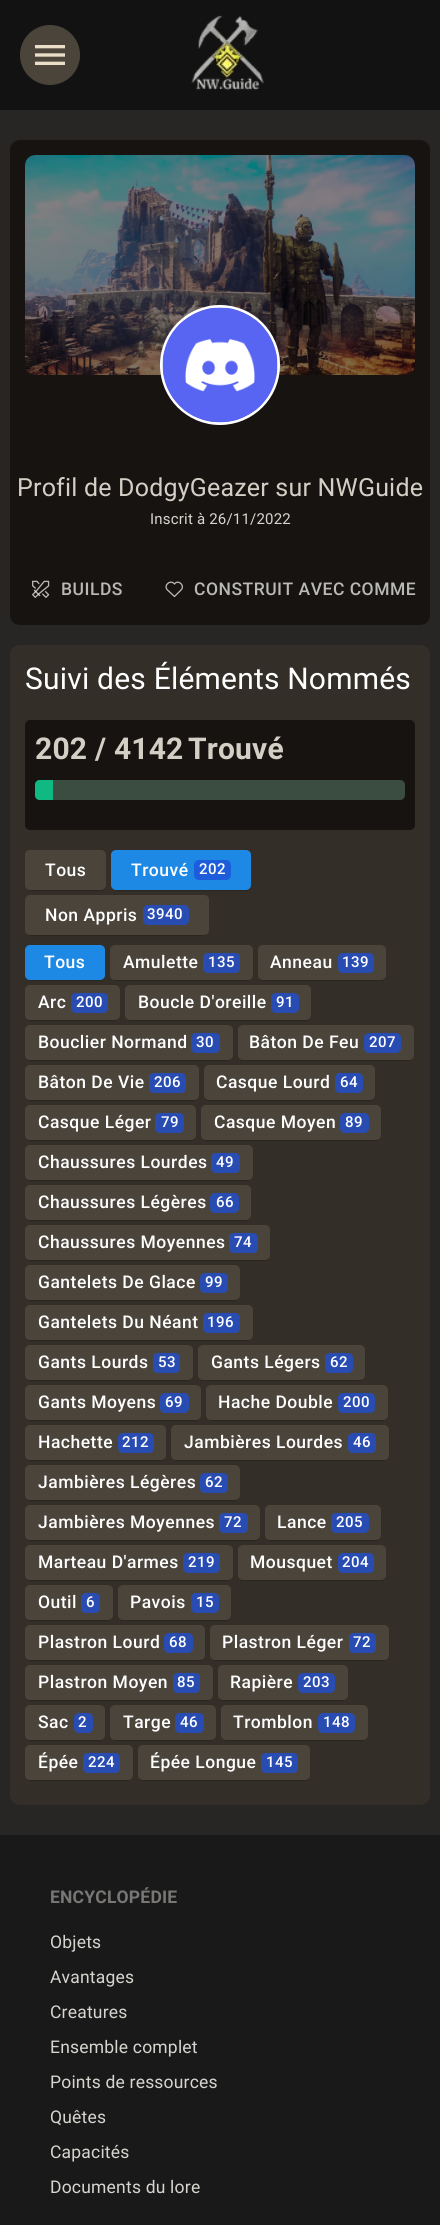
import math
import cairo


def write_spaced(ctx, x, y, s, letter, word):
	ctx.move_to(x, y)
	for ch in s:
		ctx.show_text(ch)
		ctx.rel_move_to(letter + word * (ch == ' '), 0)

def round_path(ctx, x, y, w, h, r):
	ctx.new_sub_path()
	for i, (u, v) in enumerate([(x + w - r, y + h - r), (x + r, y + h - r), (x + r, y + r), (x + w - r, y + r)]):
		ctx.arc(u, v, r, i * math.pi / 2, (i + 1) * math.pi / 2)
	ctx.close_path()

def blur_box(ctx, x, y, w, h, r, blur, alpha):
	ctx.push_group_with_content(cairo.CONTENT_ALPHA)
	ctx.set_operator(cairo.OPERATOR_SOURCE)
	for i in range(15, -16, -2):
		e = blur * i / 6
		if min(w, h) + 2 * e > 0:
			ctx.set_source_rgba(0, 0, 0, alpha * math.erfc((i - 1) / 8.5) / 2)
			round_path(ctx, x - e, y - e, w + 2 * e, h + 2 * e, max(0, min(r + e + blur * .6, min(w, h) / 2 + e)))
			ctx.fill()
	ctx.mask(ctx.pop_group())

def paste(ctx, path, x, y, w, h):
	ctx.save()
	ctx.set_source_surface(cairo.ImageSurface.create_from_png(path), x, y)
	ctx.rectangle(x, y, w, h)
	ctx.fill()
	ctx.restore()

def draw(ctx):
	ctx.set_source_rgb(0.153, 0.149, 0.141)
	ctx.paint()
	ctx.set_source_rgb(0.071, 0.071, 0.071)
	ctx.rectangle(0, 0, 440, 110)
	ctx.fill()
	ctx.set_source_rgb(0.29, 0.267, 0.227)
	ctx.arc(50, 55, 29.5, 0, 2 * math.pi)
	ctx.fill_preserve()
	ctx.set_line_width(1)
	ctx.stroke()
	paste(ctx, 'media/1.png', 35, 45, 30, 20)
	paste(ctx, 'media/2.png', 191, 15, 73, 76)
	ctx.set_source_rgb(0.09, 0.078, 0.067)
	round_path(ctx, 10, 140, 420, 485, 10)
	ctx.fill()
	paste(ctx, 'media/3.png', 25, 155, 390, 220)
	ctx.arc(220, 365, 58.5, 0, 2 * math.pi)
	ctx.set_source_rgb(1, 1, 1)
	ctx.set_line_width(3)
	ctx.stroke()
	paste(ctx, 'media/4.png', 162, 307, 116, 116)
	ctx.select_font_face('Roboto')
	ctx.set_font_size(25)
	ctx.set_source_rgb(0.831, 0.812, 0.769)
	write_spaced(ctx, 17, 496, 'Profil de DodgyGeazer sur NWGuide', 0.2, 0)
	ctx.set_font_size(15)
	ctx.set_source_rgb(0.843, 0.835, 0.816)
	write_spaced(ctx, 150, 524, 'Inscrit à 26/11/2022', 0.2, 0)
	paste(ctx, 'media/5.png', 32, 580, 18, 18)
	ctx.select_font_face('Roboto Medium')
	ctx.set_font_size(17.5)
	ctx.set_source_rgb(0.725, 0.725, 0.722)
	write_spaced(ctx, 61, 595, 'BUILDS', 0.5, 0)
	ctx.new_path()
	ctx.move_to(181, 590)
	ctx.line_to(174.5, 596.5)
	ctx.line_to(167.5, 590)
	ctx.move_to(167.5, 590)
	ctx.curve_to(163, 585.5, 170.5, 579, 174.5, 584)
	ctx.curve_to(178, 579, 185.5, 585.5, 181, 590)
	ctx.set_line_width(1.3)
	ctx.set_line_cap(cairo.LINE_CAP_ROUND)
	ctx.set_line_join(cairo.LINE_JOIN_ROUND)
	ctx.stroke()
	write_spaced(ctx, 194, 595, 'CONSTRUIT AVEC COMME', 0.5, 0)
	ctx.set_source_rgb(0.2, 0.184, 0.157)
	round_path(ctx, 10, 645, 420, 1160, 10)
	ctx.fill()
	ctx.select_font_face('Roboto')
	ctx.set_font_size(30)
	ctx.set_source_rgb(1, 1, 1)
	write_spaced(ctx, 25, 689, 'Suivi des Éléments Nommés', 0.2, 0)
	ctx.set_source_rgb(0.09, 0.078, 0.067)
	round_path(ctx, 25, 720, 390, 110, 5)
	ctx.fill()
	ctx.select_font_face('Roboto', cairo.FONT_SLANT_NORMAL, cairo.FONT_WEIGHT_BOLD)
	ctx.set_source_rgb(0.831, 0.812, 0.769)
	write_spaced(ctx, 35, 759, '202 / 4142', 0.2, 0)
	write_spaced(ctx, 188, 759, 'Trouvé', 0.2, 0)
	ctx.set_source_rgb(0.231, 0.298, 0.255)
	round_path(ctx, 35, 780, 370, 20, 5)
	ctx.fill()
	ctx.set_source_rgb(0.063, 0.725, 0.506)
	ctx.new_path()
	ctx.move_to(40, 780)
	ctx.line_to(53, 780)
	ctx.line_to(53, 800)
	ctx.line_to(40, 800)
	ctx.curve_to(37, 800, 35, 798, 35, 795)
	ctx.line_to(35, 785)
	ctx.curve_to(35, 782, 37, 780, 40, 780)
	ctx.close_path()
	ctx.fill()
	ctx.set_source_rgb(0, 0, 0)
	blur_box(ctx, 28, 856, 76, 35, 2.5, 0.5, 0.2)
	ctx.set_source_rgb(0.29, 0.267, 0.227)
	round_path(ctx, 25, 850, 81, 40, 5)
	ctx.fill()
	ctx.select_font_face('Roboto Medium')
	ctx.set_font_size(17.5)
	ctx.set_source_rgb(1, 1, 1)
	write_spaced(ctx, 45, 876, 'Tous', 0.5, 0)
	ctx.set_source_rgb(0, 0, 0)
	blur_box(ctx, 114, 856, 135, 35, 2.5, 0.5, 0.2)
	ctx.set_source_rgb(0.118, 0.533, 0.898)
	round_path(ctx, 111, 850, 140, 40, 5)
	ctx.fill()
	ctx.set_source_rgb(1, 1, 1)
	write_spaced(ctx, 131, 876, 'Trouvé', 0.5, 0)
	ctx.set_source_rgb(0.114, 0.365, 0.859)
	round_path(ctx, 194, 860, 37, 20, 5)
	ctx.fill()
	ctx.set_font_size(15)
	ctx.set_source_rgb(1, 1, 1)
	write_spaced(ctx, 199, 874, '202', 0.5, 0)
	ctx.set_source_rgb(0, 0, 0)
	blur_box(ctx, 28, 901, 178, 35, 2.5, 0.5, 0.2)
	ctx.set_source_rgb(0.29, 0.267, 0.227)
	round_path(ctx, 25, 895, 184, 40, 5)
	ctx.fill()
	ctx.set_font_size(17.5)
	ctx.set_source_rgb(1, 1, 1)
	write_spaced(ctx, 45, 921, 'Non Appris', 0.5, 0)
	ctx.set_source_rgb(0.157, 0.298, 0.694)
	round_path(ctx, 143, 905, 46, 20, 5)
	ctx.fill()
	ctx.set_font_size(15)
	ctx.set_source_rgb(1, 1, 1)
	write_spaced(ctx, 147, 919, '3940', 0.5, 0)
	ctx.set_source_rgb(0, 0, 0)
	blur_box(ctx, 28, 951, 75, 30, 2.5, 0.5, 0.2)
	ctx.set_source_rgb(0.118, 0.533, 0.898)
	round_path(ctx, 25, 945, 80, 35, 5)
	ctx.fill()
	ctx.set_font_size(17.5)
	ctx.set_source_rgb(1, 1, 1)
	write_spaced(ctx, 44, 968, 'Tous', 0.5, 0)
	ctx.set_source_rgb(0, 0, 0)
	blur_box(ctx, 113, 951, 137, 30, 2.5, 0.5, 0.2)
	ctx.set_source_rgb(0.29, 0.267, 0.227)
	round_path(ctx, 110, 945, 143, 35, 5)
	ctx.fill()
	ctx.set_source_rgb(1, 1, 1)
	write_spaced(ctx, 123, 968, 'Amulette', 0.5, 0)
	ctx.set_source_rgb(0.157, 0.298, 0.694)
	round_path(ctx, 203, 953, 37, 20, 5)
	ctx.fill()
	ctx.set_font_size(15)
	ctx.set_source_rgb(1, 1, 1)
	write_spaced(ctx, 208, 967, '135', 0.5, 0)
	ctx.set_source_rgb(0, 0, 0)
	blur_box(ctx, 260, 951, 124, 30, 2.5, 0.5, 0.2)
	ctx.set_source_rgb(0.29, 0.267, 0.227)
	round_path(ctx, 258, 945, 128, 35, 5)
	ctx.fill()
	ctx.set_font_size(17.5)
	ctx.set_source_rgb(1, 1, 1)
	write_spaced(ctx, 270, 968, 'Anneau', 0.5, 0)
	ctx.set_source_rgb(0.157, 0.298, 0.694)
	round_path(ctx, 338, 953, 36, 20, 5)
	ctx.fill()
	ctx.set_font_size(15)
	ctx.set_source_rgb(1, 1, 1)
	write_spaced(ctx, 342, 967, '139', 0.5, 0)
	ctx.set_source_rgb(0, 0, 0)
	blur_box(ctx, 28, 991, 90, 30, 2.5, 0.5, 0.2)
	ctx.set_source_rgb(0.29, 0.267, 0.227)
	round_path(ctx, 25, 985, 95, 35, 5)
	ctx.fill()
	ctx.set_font_size(17.5)
	ctx.set_source_rgb(1, 1, 1)
	write_spaced(ctx, 38, 1008, 'Arc', 0.5, 0)
	ctx.set_source_rgb(0.157, 0.298, 0.694)
	round_path(ctx, 71, 993, 37, 20, 5)
	ctx.fill()
	ctx.set_font_size(15)
	ctx.set_source_rgb(1, 1, 1)
	write_spaced(ctx, 76, 1007, '200', 0.5, 0)
	ctx.set_source_rgb(0, 0, 0)
	blur_box(ctx, 128, 991, 181, 30, 2.5, 0.5, 0.2)
	ctx.set_source_rgb(0.29, 0.267, 0.227)
	round_path(ctx, 125, 985, 186, 35, 5)
	ctx.fill()
	ctx.set_font_size(17.5)
	ctx.set_source_rgb(1, 1, 1)
	write_spaced(ctx, 138, 1008, 'Boucle D\'oreille', 0.5, 0)
	ctx.set_source_rgb(0.157, 0.298, 0.694)
	round_path(ctx, 271, 993, 28, 20, 5)
	ctx.fill()
	ctx.set_font_size(15)
	ctx.set_source_rgb(1, 1, 1)
	write_spaced(ctx, 276, 1007, '91', 0.5, 0)
	ctx.set_source_rgb(0, 0, 0)
	blur_box(ctx, 28, 1031, 202, 30, 2.5, 0.5, 0.2)
	ctx.set_source_rgb(0.29, 0.267, 0.227)
	round_path(ctx, 25, 1025, 208, 35, 5)
	ctx.fill()
	ctx.set_font_size(17.5)
	ctx.set_source_rgb(1, 1, 1)
	write_spaced(ctx, 38, 1048, 'Bouclier Normand', 0.5, 0)
	ctx.set_source_rgb(0.157, 0.298, 0.694)
	round_path(ctx, 191, 1033, 29, 20, 5)
	ctx.fill()
	ctx.set_font_size(15)
	ctx.set_source_rgb(1, 1, 1)
	write_spaced(ctx, 196, 1047, '30', 0.5, 0)
	ctx.set_source_rgb(0, 0, 0)
	blur_box(ctx, 240, 1031, 171, 30, 2.5, 0.5, 0.2)
	ctx.set_source_rgb(0.29, 0.267, 0.227)
	round_path(ctx, 238, 1025, 176, 35, 5)
	ctx.fill()
	ctx.set_font_size(17.5)
	ctx.set_source_rgb(1, 1, 1)
	write_spaced(ctx, 249, 1048, 'Bâton De Feu', 0.5, 0)
	ctx.set_source_rgb(0.157, 0.298, 0.694)
	round_path(ctx, 364, 1033, 37, 20, 5)
	ctx.fill()
	ctx.set_font_size(15)
	ctx.set_source_rgb(1, 1, 1)
	write_spaced(ctx, 369, 1047, '207', 0.5, 0)
	ctx.set_source_rgb(0, 0, 0)
	blur_box(ctx, 28, 1071, 168, 30, 2.5, 0.5, 0.2)
	ctx.set_source_rgb(0.29, 0.267, 0.227)
	round_path(ctx, 25, 1065, 174, 35, 5)
	ctx.fill()
	ctx.set_font_size(17.5)
	ctx.set_source_rgb(1, 1, 1)
	write_spaced(ctx, 38, 1088, 'Bâton De Vie', 0.5, 0)
	ctx.set_source_rgb(0.157, 0.298, 0.694)
	round_path(ctx, 149, 1073, 37, 20, 5)
	ctx.fill()
	ctx.set_font_size(15)
	ctx.set_source_rgb(1, 1, 1)
	write_spaced(ctx, 154, 1087, '206', 0.5, 0)
	ctx.set_source_rgb(0, 0, 0)
	blur_box(ctx, 206, 1071, 167, 30, 2.5, 0.5, 0.2)
	ctx.set_source_rgb(0.29, 0.267, 0.227)
	round_path(ctx, 204, 1065, 171, 35, 5)
	ctx.fill()
	ctx.set_font_size(17.5)
	ctx.set_source_rgb(1, 1, 1)
	write_spaced(ctx, 216, 1088, 'Casque Lourd', 0.5, 0)
	ctx.set_source_rgb(0.157, 0.298, 0.694)
	round_path(ctx, 335, 1073, 28, 20, 5)
	ctx.fill()
	ctx.set_font_size(15)
	ctx.set_source_rgb(1, 1, 1)
	write_spaced(ctx, 340, 1087, '64', 0.5, 0)
	ctx.set_source_rgb(0, 0, 0)
	blur_box(ctx, 28, 1111, 166, 30, 2.5, 0.5, 0.2)
	ctx.set_source_rgb(0.29, 0.267, 0.227)
	round_path(ctx, 25, 1105, 171, 35, 5)
	ctx.fill()
	ctx.set_font_size(17.5)
	ctx.set_source_rgb(1, 1, 1)
	write_spaced(ctx, 38, 1128, 'Casque Léger', 0.5, 0)
	ctx.set_source_rgb(0.157, 0.298, 0.694)
	round_path(ctx, 155, 1113, 29, 20, 5)
	ctx.fill()
	ctx.set_font_size(15)
	ctx.set_source_rgb(1, 1, 1)
	write_spaced(ctx, 161, 1127, '79', 0.5, 0)
	ctx.set_source_rgb(0, 0, 0)
	blur_box(ctx, 204, 1111, 175, 30, 2.5, 0.5, 0.2)
	ctx.set_source_rgb(0.29, 0.267, 0.227)
	round_path(ctx, 201, 1105, 180, 35, 5)
	ctx.fill()
	ctx.set_font_size(17.5)
	ctx.set_source_rgb(1, 1, 1)
	write_spaced(ctx, 214, 1128, 'Casque Moyen', 0.5, 0)
	ctx.set_source_rgb(0.157, 0.298, 0.694)
	round_path(ctx, 340, 1113, 29, 20, 5)
	ctx.fill()
	ctx.set_font_size(15)
	ctx.set_source_rgb(1, 1, 1)
	write_spaced(ctx, 345, 1127, '89', 0.5, 0)
	ctx.set_source_rgb(0, 0, 0)
	blur_box(ctx, 28, 1151, 222, 30, 2.5, 0.5, 0.2)
	ctx.set_source_rgb(0.29, 0.267, 0.227)
	round_path(ctx, 25, 1145, 228, 35, 5)
	ctx.fill()
	ctx.set_font_size(17.5)
	ctx.set_source_rgb(1, 1, 1)
	write_spaced(ctx, 38, 1168, 'Chaussures Lourdes', 0.5, 0)
	ctx.set_source_rgb(0.157, 0.298, 0.694)
	round_path(ctx, 211, 1153, 29, 20, 5)
	ctx.fill()
	ctx.set_font_size(15)
	ctx.set_source_rgb(1, 1, 1)
	write_spaced(ctx, 216, 1167, '49', 0.5, 0)
	ctx.set_source_rgb(0, 0, 0)
	blur_box(ctx, 28, 1191, 221, 30, 2.5, 0.5, 0.2)
	ctx.set_source_rgb(0.29, 0.267, 0.227)
	round_path(ctx, 25, 1185, 226, 35, 5)
	ctx.fill()
	ctx.set_font_size(17.5)
	ctx.set_source_rgb(1, 1, 1)
	write_spaced(ctx, 38, 1208, 'Chaussures Légères', 0.5, 0)
	ctx.set_source_rgb(0.157, 0.298, 0.694)
	round_path(ctx, 210, 1193, 29, 20, 5)
	ctx.fill()
	ctx.set_font_size(15)
	ctx.set_source_rgb(1, 1, 1)
	write_spaced(ctx, 216, 1207, '66', 0.5, 0)
	ctx.set_source_rgb(0, 0, 0)
	blur_box(ctx, 28, 1231, 240, 30, 2.5, 0.5, 0.2)
	ctx.set_source_rgb(0.29, 0.267, 0.227)
	round_path(ctx, 25, 1225, 245, 35, 5)
	ctx.fill()
	ctx.set_font_size(17.5)
	ctx.set_source_rgb(1, 1, 1)
	write_spaced(ctx, 38, 1248, 'Chaussures Moyennes', 0.5, 0)
	ctx.set_source_rgb(0.157, 0.298, 0.694)
	round_path(ctx, 229, 1233, 29, 20, 5)
	ctx.fill()
	ctx.set_font_size(15)
	ctx.set_source_rgb(1, 1, 1)
	write_spaced(ctx, 234, 1247, '74', 0.5, 0)
	ctx.set_source_rgb(0, 0, 0)
	blur_box(ctx, 28, 1271, 210, 30, 2.5, 0.5, 0.2)
	ctx.set_source_rgb(0.29, 0.267, 0.227)
	round_path(ctx, 25, 1265, 215, 35, 5)
	ctx.fill()
	ctx.set_font_size(17.5)
	ctx.set_source_rgb(1, 1, 1)
	write_spaced(ctx, 38, 1288, 'Gantelets De Glace', 0.5, 0)
	ctx.set_source_rgb(0.157, 0.298, 0.694)
	round_path(ctx, 200, 1273, 28, 20, 5)
	ctx.fill()
	ctx.set_font_size(15)
	ctx.set_source_rgb(1, 1, 1)
	write_spaced(ctx, 205, 1287, '99', 0.5, 0)
	ctx.set_source_rgb(0, 0, 0)
	blur_box(ctx, 28, 1311, 222, 30, 2.5, 0.5, 0.2)
	ctx.set_source_rgb(0.29, 0.267, 0.227)
	round_path(ctx, 25, 1305, 228, 35, 5)
	ctx.fill()
	ctx.set_font_size(17.5)
	ctx.set_source_rgb(1, 1, 1)
	write_spaced(ctx, 38, 1328, 'Gantelets Du Néant', 0.5, 0)
	ctx.set_source_rgb(0.157, 0.298, 0.694)
	round_path(ctx, 203, 1313, 37, 20, 5)
	ctx.fill()
	ctx.set_font_size(15)
	ctx.set_source_rgb(1, 1, 1)
	write_spaced(ctx, 207, 1327, '196', 0.5, 0)
	ctx.set_source_rgb(0, 0, 0)
	blur_box(ctx, 28, 1351, 162, 30, 2.5, 0.5, 0.2)
	ctx.set_source_rgb(0.29, 0.267, 0.227)
	round_path(ctx, 25, 1345, 168, 35, 5)
	ctx.fill()
	ctx.set_font_size(17.5)
	ctx.set_source_rgb(1, 1, 1)
	write_spaced(ctx, 38, 1368, 'Gants Lourds', 0.5, 0)
	ctx.set_source_rgb(0.157, 0.298, 0.694)
	round_path(ctx, 153, 1353, 27, 20, 5)
	ctx.fill()
	ctx.set_font_size(15)
	ctx.set_source_rgb(1, 1, 1)
	write_spaced(ctx, 158, 1367, '53', 0.5, 0)
	ctx.set_source_rgb(0, 0, 0)
	blur_box(ctx, 200, 1351, 163, 30, 2.5, 0.5, 0.2)
	ctx.set_source_rgb(0.29, 0.267, 0.227)
	round_path(ctx, 198, 1345, 167, 35, 5)
	ctx.fill()
	ctx.set_font_size(17.5)
	ctx.set_source_rgb(1, 1, 1)
	write_spaced(ctx, 211, 1368, 'Gants Légers', 0.5, 0)
	ctx.set_source_rgb(0.157, 0.298, 0.694)
	round_path(ctx, 325, 1353, 28, 20, 5)
	ctx.fill()
	ctx.set_font_size(15)
	ctx.set_source_rgb(1, 1, 1)
	write_spaced(ctx, 330, 1367, '62', 0.5, 0)
	ctx.set_source_rgb(0, 0, 0)
	blur_box(ctx, 28, 1391, 171, 30, 2.5, 0.5, 0.2)
	ctx.set_source_rgb(0.29, 0.267, 0.227)
	round_path(ctx, 25, 1385, 176, 35, 5)
	ctx.fill()
	ctx.set_font_size(17.5)
	ctx.set_source_rgb(1, 1, 1)
	write_spaced(ctx, 38, 1408, 'Gants Moyens', 0.5, 0)
	ctx.set_source_rgb(0.157, 0.298, 0.694)
	round_path(ctx, 160, 1393, 29, 20, 5)
	ctx.fill()
	ctx.set_font_size(15)
	ctx.set_source_rgb(1, 1, 1)
	write_spaced(ctx, 165, 1407, '69', 0.5, 0)
	ctx.set_source_rgb(0, 0, 0)
	blur_box(ctx, 209, 1391, 176, 30, 2.5, 0.5, 0.2)
	ctx.set_source_rgb(0.29, 0.267, 0.227)
	round_path(ctx, 206, 1385, 182, 35, 5)
	ctx.fill()
	ctx.set_font_size(17.5)
	ctx.set_source_rgb(1, 1, 1)
	write_spaced(ctx, 218, 1408, 'Hache Double', 0.5, 0)
	ctx.set_source_rgb(0.157, 0.298, 0.694)
	round_path(ctx, 338, 1393, 37, 20, 5)
	ctx.fill()
	ctx.set_font_size(15)
	ctx.set_source_rgb(1, 1, 1)
	write_spaced(ctx, 343, 1407, '200', 0.5, 0)
	ctx.set_source_rgb(0, 0, 0)
	blur_box(ctx, 28, 1431, 136, 30, 2.5, 0.5, 0.2)
	ctx.set_source_rgb(0.29, 0.267, 0.227)
	round_path(ctx, 25, 1425, 141, 35, 5)
	ctx.fill()
	ctx.set_font_size(17.5)
	ctx.set_source_rgb(1, 1, 1)
	write_spaced(ctx, 38, 1448, 'Hachette', 0.5, 0)
	ctx.set_source_rgb(0.157, 0.298, 0.694)
	round_path(ctx, 118, 1433, 36, 20, 5)
	ctx.fill()
	ctx.set_font_size(15)
	ctx.set_source_rgb(1, 1, 1)
	write_spaced(ctx, 122, 1447, '212', 0.5, 0)
	ctx.set_source_rgb(0, 0, 0)
	blur_box(ctx, 174, 1431, 212, 30, 2.5, 0.5, 0.2)
	ctx.set_source_rgb(0.29, 0.267, 0.227)
	round_path(ctx, 171, 1425, 218, 35, 5)
	ctx.fill()
	ctx.set_font_size(17.5)
	ctx.set_source_rgb(1, 1, 1)
	write_spaced(ctx, 184, 1448, 'Jambières Lourdes', 0.5, 0)
	ctx.set_source_rgb(0.157, 0.298, 0.694)
	round_path(ctx, 348, 1433, 28, 20, 5)
	ctx.fill()
	ctx.set_font_size(15)
	ctx.set_source_rgb(1, 1, 1)
	write_spaced(ctx, 353, 1447, '46', 0.5, 0)
	ctx.set_source_rgb(0, 0, 0)
	blur_box(ctx, 28, 1471, 210, 30, 2.5, 0.5, 0.2)
	ctx.set_source_rgb(0.29, 0.267, 0.227)
	round_path(ctx, 25, 1465, 215, 35, 5)
	ctx.fill()
	ctx.set_font_size(17.5)
	ctx.set_source_rgb(1, 1, 1)
	write_spaced(ctx, 38, 1488, 'Jambières Légères', 0.5, 0)
	ctx.set_source_rgb(0.157, 0.298, 0.694)
	round_path(ctx, 200, 1473, 28, 20, 5)
	ctx.fill()
	ctx.set_font_size(15)
	ctx.set_source_rgb(1, 1, 1)
	write_spaced(ctx, 205, 1487, '62', 0.5, 0)
	ctx.set_source_rgb(0, 0, 0)
	blur_box(ctx, 28, 1511, 230, 30, 2.5, 0.5, 0.2)
	ctx.set_source_rgb(0.29, 0.267, 0.227)
	round_path(ctx, 25, 1505, 235, 35, 5)
	ctx.fill()
	ctx.set_font_size(17.5)
	ctx.set_source_rgb(1, 1, 1)
	write_spaced(ctx, 38, 1528, 'Jambières Moyennes', 0.5, 0)
	ctx.set_source_rgb(0.157, 0.298, 0.694)
	round_path(ctx, 219, 1513, 29, 20, 5)
	ctx.fill()
	ctx.set_font_size(15)
	ctx.set_source_rgb(1, 1, 1)
	write_spaced(ctx, 224, 1527, '72', 0.5, 0)
	ctx.set_source_rgb(0, 0, 0)
	blur_box(ctx, 268, 1511, 111, 30, 2.5, 0.5, 0.2)
	ctx.set_source_rgb(0.29, 0.267, 0.227)
	round_path(ctx, 265, 1505, 116, 35, 5)
	ctx.fill()
	ctx.set_font_size(17.5)
	ctx.set_source_rgb(1, 1, 1)
	write_spaced(ctx, 277, 1528, 'Lance', 0.5, 0)
	ctx.set_source_rgb(0.157, 0.298, 0.694)
	round_path(ctx, 331, 1513, 38, 20, 5)
	ctx.fill()
	ctx.set_font_size(15)
	ctx.set_source_rgb(1, 1, 1)
	write_spaced(ctx, 336, 1527, '205', 0.5, 0)
	ctx.set_source_rgb(0, 0, 0)
	blur_box(ctx, 28, 1551, 202, 30, 2.5, 0.5, 0.2)
	ctx.set_source_rgb(0.29, 0.267, 0.227)
	round_path(ctx, 25, 1545, 208, 35, 5)
	ctx.fill()
	ctx.set_font_size(17.5)
	ctx.set_source_rgb(1, 1, 1)
	write_spaced(ctx, 38, 1568, 'Marteau D\'armes', 0.5, 0)
	ctx.set_source_rgb(0.157, 0.298, 0.694)
	round_path(ctx, 183, 1553, 37, 20, 5)
	ctx.fill()
	ctx.set_font_size(15)
	ctx.set_source_rgb(1, 1, 1)
	write_spaced(ctx, 188, 1567, '219', 0.5, 0)
	ctx.set_source_rgb(0, 0, 0)
	blur_box(ctx, 240, 1551, 144, 30, 2.5, 0.5, 0.2)
	ctx.set_source_rgb(0.29, 0.267, 0.227)
	round_path(ctx, 238, 1545, 148, 35, 5)
	ctx.fill()
	ctx.set_font_size(17.5)
	ctx.set_source_rgb(1, 1, 1)
	write_spaced(ctx, 250, 1568, 'Mousquet', 0.5, 0)
	ctx.set_source_rgb(0.157, 0.298, 0.694)
	round_path(ctx, 338, 1553, 36, 20, 5)
	ctx.fill()
	ctx.set_font_size(15)
	ctx.set_source_rgb(1, 1, 1)
	write_spaced(ctx, 342, 1567, '204', 0.5, 0)
	ctx.set_source_rgb(0, 0, 0)
	blur_box(ctx, 28, 1591, 82, 30, 2.5, 0.5, 0.2)
	ctx.set_source_rgb(0.29, 0.267, 0.227)
	round_path(ctx, 25, 1585, 88, 35, 5)
	ctx.fill()
	ctx.set_font_size(17.5)
	ctx.set_source_rgb(1, 1, 1)
	write_spaced(ctx, 38, 1608, 'Outil', 0.5, 0)
	ctx.set_source_rgb(0.157, 0.298, 0.694)
	round_path(ctx, 81, 1593, 19, 20, 5)
	ctx.fill()
	ctx.set_font_size(15)
	ctx.set_source_rgb(1, 1, 1)
	write_spaced(ctx, 86, 1607, '6', 0.5, 0)
	ctx.set_source_rgb(0, 0, 0)
	blur_box(ctx, 120, 1591, 109, 30, 2.5, 0.5, 0.2)
	ctx.set_source_rgb(0.29, 0.267, 0.227)
	round_path(ctx, 118, 1585, 113, 35, 5)
	ctx.fill()
	ctx.set_font_size(17.5)
	ctx.set_source_rgb(1, 1, 1)
	write_spaced(ctx, 130, 1608, 'Pavois', 0.5, 0)
	ctx.set_source_rgb(0.157, 0.298, 0.694)
	round_path(ctx, 191, 1593, 28, 20, 5)
	ctx.fill()
	ctx.set_font_size(15)
	ctx.set_source_rgb(1, 1, 1)
	write_spaced(ctx, 196, 1607, '15', 0.5, 0)
	ctx.set_source_rgb(0, 0, 0)
	blur_box(ctx, 28, 1631, 175, 30, 2.5, 0.5, 0.2)
	ctx.set_source_rgb(0.29, 0.267, 0.227)
	round_path(ctx, 25, 1625, 180, 35, 5)
	ctx.fill()
	ctx.set_font_size(17.5)
	ctx.set_source_rgb(1, 1, 1)
	write_spaced(ctx, 38, 1648, 'Plastron Lourd', 0.5, 0)
	ctx.set_source_rgb(0.157, 0.298, 0.694)
	round_path(ctx, 164, 1633, 29, 20, 5)
	ctx.fill()
	ctx.set_font_size(15)
	ctx.set_source_rgb(1, 1, 1)
	write_spaced(ctx, 169, 1647, '68', 0.5, 0)
	ctx.set_source_rgb(0, 0, 0)
	blur_box(ctx, 213, 1631, 173, 30, 2.5, 0.5, 0.2)
	ctx.set_source_rgb(0.29, 0.267, 0.227)
	round_path(ctx, 210, 1625, 179, 35, 5)
	ctx.fill()
	ctx.set_font_size(17.5)
	ctx.set_source_rgb(1, 1, 1)
	write_spaced(ctx, 222, 1648, 'Plastron Léger', 0.5, 0)
	ctx.set_source_rgb(0.157, 0.298, 0.694)
	round_path(ctx, 349, 1633, 27, 20, 5)
	ctx.fill()
	ctx.set_font_size(15)
	ctx.set_source_rgb(1, 1, 1)
	write_spaced(ctx, 353, 1647, '72', 0.5, 0)
	ctx.set_source_rgb(0, 0, 0)
	blur_box(ctx, 28, 1671, 182, 30, 2.5, 0.5, 0.2)
	ctx.set_source_rgb(0.29, 0.267, 0.227)
	round_path(ctx, 25, 1665, 188, 35, 5)
	ctx.fill()
	ctx.set_font_size(17.5)
	ctx.set_source_rgb(1, 1, 1)
	write_spaced(ctx, 38, 1688, 'Plastron Moyen', 0.5, 0)
	ctx.set_source_rgb(0.157, 0.298, 0.694)
	round_path(ctx, 173, 1673, 27, 20, 5)
	ctx.fill()
	ctx.set_font_size(15)
	ctx.set_source_rgb(1, 1, 1)
	write_spaced(ctx, 177, 1687, '85', 0.5, 0)
	ctx.set_source_rgb(0, 0, 0)
	blur_box(ctx, 220, 1671, 125, 30, 2.5, 0.5, 0.2)
	ctx.set_source_rgb(0.29, 0.267, 0.227)
	round_path(ctx, 218, 1665, 130, 35, 5)
	ctx.fill()
	ctx.set_font_size(17.5)
	ctx.set_source_rgb(1, 1, 1)
	write_spaced(ctx, 230, 1688, 'Rapière', 0.5, 0)
	ctx.set_source_rgb(0.157, 0.298, 0.694)
	round_path(ctx, 298, 1673, 37, 20, 5)
	ctx.fill()
	ctx.set_font_size(15)
	ctx.set_source_rgb(1, 1, 1)
	write_spaced(ctx, 303, 1687, '203', 0.5, 0)
	ctx.set_source_rgb(0, 0, 0)
	blur_box(ctx, 28, 1711, 75, 30, 2.5, 0.5, 0.2)
	ctx.set_source_rgb(0.29, 0.267, 0.227)
	round_path(ctx, 25, 1705, 80, 35, 5)
	ctx.fill()
	ctx.set_font_size(17.5)
	ctx.set_source_rgb(1, 1, 1)
	write_spaced(ctx, 38, 1728, 'Sac', 0.5, 0)
	ctx.set_source_rgb(0.157, 0.298, 0.694)
	round_path(ctx, 74, 1713, 19, 20, 5)
	ctx.fill()
	ctx.set_font_size(15)
	ctx.set_source_rgb(1, 1, 1)
	write_spaced(ctx, 78, 1727, '2', 0.5, 0)
	ctx.set_source_rgb(0, 0, 0)
	blur_box(ctx, 113, 1711, 101, 30, 2.5, 0.5, 0.2)
	ctx.set_source_rgb(0.29, 0.267, 0.227)
	round_path(ctx, 110, 1705, 106, 35, 5)
	ctx.fill()
	ctx.set_font_size(17.5)
	ctx.set_source_rgb(1, 1, 1)
	write_spaced(ctx, 123, 1728, 'Targe', 0.5, 0)
	ctx.set_source_rgb(0.157, 0.298, 0.694)
	round_path(ctx, 175, 1713, 29, 20, 5)
	ctx.fill()
	ctx.set_font_size(15)
	ctx.set_source_rgb(1, 1, 1)
	write_spaced(ctx, 180, 1727, '46', 0.5, 0)
	ctx.set_source_rgb(0, 0, 0)
	blur_box(ctx, 224, 1711, 141, 30, 2.5, 0.5, 0.2)
	ctx.set_source_rgb(0.29, 0.267, 0.227)
	round_path(ctx, 221, 1705, 147, 35, 5)
	ctx.fill()
	ctx.set_font_size(17.5)
	ctx.set_source_rgb(1, 1, 1)
	write_spaced(ctx, 233, 1728, 'Tromblon', 0.5, 0)
	ctx.set_source_rgb(0.157, 0.298, 0.694)
	round_path(ctx, 318, 1713, 37, 20, 5)
	ctx.fill()
	ctx.set_font_size(15)
	ctx.set_source_rgb(1, 1, 1)
	write_spaced(ctx, 323, 1727, '148', 0.5, 0)
	ctx.set_source_rgb(0, 0, 0)
	blur_box(ctx, 28, 1751, 102, 30, 2.5, 0.5, 0.2)
	ctx.set_source_rgb(0.29, 0.267, 0.227)
	round_path(ctx, 25, 1745, 108, 35, 5)
	ctx.fill()
	ctx.set_font_size(17.5)
	ctx.set_source_rgb(1, 1, 1)
	write_spaced(ctx, 38, 1768, 'Épée', 0.5, 0)
	ctx.set_source_rgb(0.157, 0.298, 0.694)
	round_path(ctx, 83, 1753, 37, 20, 5)
	ctx.fill()
	ctx.set_font_size(15)
	ctx.set_source_rgb(1, 1, 1)
	write_spaced(ctx, 88, 1767, '224', 0.5, 0)
	ctx.set_source_rgb(0, 0, 0)
	blur_box(ctx, 140, 1751, 168, 30, 2.5, 0.5, 0.2)
	ctx.set_source_rgb(0.29, 0.267, 0.227)
	round_path(ctx, 138, 1745, 172, 35, 5)
	ctx.fill()
	ctx.set_font_size(17.5)
	ctx.set_source_rgb(1, 1, 1)
	write_spaced(ctx, 150, 1768, 'Épée Longue', 0.5, 0)
	ctx.set_source_rgb(0.157, 0.298, 0.694)
	round_path(ctx, 261, 1753, 37, 20, 5)
	ctx.fill()
	ctx.set_font_size(15)
	ctx.set_source_rgb(1, 1, 1)
	write_spaced(ctx, 266, 1767, '145', 0.5, 0)
	ctx.set_source_rgb(0.098, 0.098, 0.098)
	ctx.rectangle(0, 1835, 440, 390)
	ctx.fill()
	ctx.select_font_face('Roboto', cairo.FONT_SLANT_NORMAL, cairo.FONT_WEIGHT_BOLD)
	ctx.set_font_size(17.5)
	ctx.set_source_rgb(0.471, 0.467, 0.459)
	write_spaced(ctx, 50, 1903, 'ENCYCLOPÉDIE', 0.2, 0)
	ctx.select_font_face('Roboto')
	ctx.set_source_rgb(0.843, 0.835, 0.816)
	for x, y, s in [
		(50, 1948, 'Objets'),
		(50, 1983, 'Avantages'),
		(50, 2018, 'Creatures'),
		(50, 2053, 'Ensemble complet'),
		(50, 2088, 'Points de ressources'),
		(50, 2123, 'Quêtes'),
		(50, 2158, 'Capacités'),
		(50, 2193, 'Documents du lore'),
	]:
		write_spaced(ctx, x, y, s, 0.2, 0)


surface = cairo.ImageSurface(cairo.FORMAT_RGB24, 440, 2225)
ctx = cairo.Context(surface)
options = cairo.FontOptions()
options.set_hint_metrics(cairo.HINT_METRICS_OFF)
options.set_hint_style(cairo.HINT_STYLE_NONE)
ctx.set_font_options(options)
ctx.set_miter_limit(4)
draw(ctx)
surface.write_to_png('image.png')
